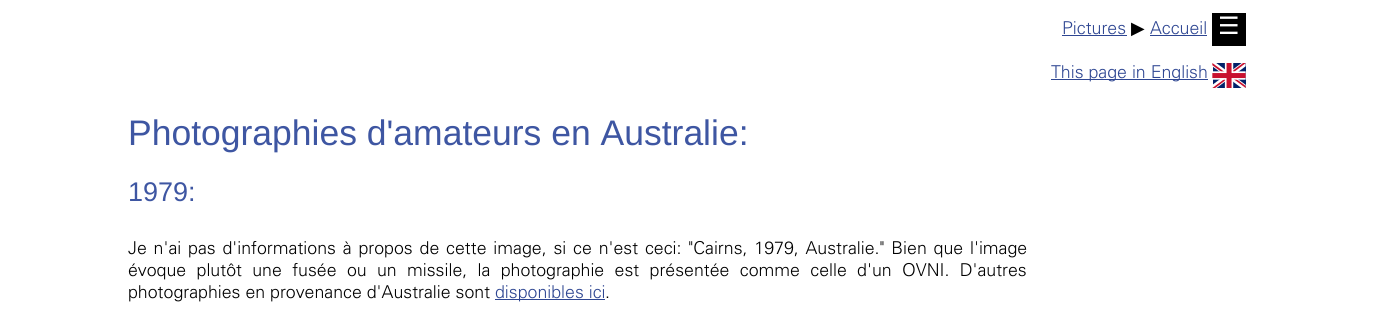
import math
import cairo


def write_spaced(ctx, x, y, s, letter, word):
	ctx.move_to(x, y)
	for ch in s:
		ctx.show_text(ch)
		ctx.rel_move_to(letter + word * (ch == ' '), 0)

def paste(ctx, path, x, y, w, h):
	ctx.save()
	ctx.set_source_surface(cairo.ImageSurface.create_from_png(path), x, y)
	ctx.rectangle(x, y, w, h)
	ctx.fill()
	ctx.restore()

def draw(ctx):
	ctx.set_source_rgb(1, 1, 1)
	ctx.paint()
	ctx.select_font_face('Univers Light')
	ctx.set_font_size(17.75)
	ctx.set_source_rgb(0.18, 0.275, 0.573)
	ctx.move_to(1062, 34)
	ctx.show_text('Pictures')
	ctx.rectangle(1062, 35, 65, 1)
	ctx.fill()
	ctx.select_font_face('DejaVu Sans')
	ctx.set_source_rgb(0, 0, 0)
	ctx.move_to(1131, 34)
	ctx.show_text('▶')
	ctx.select_font_face('Univers Light')
	ctx.set_source_rgb(0.18, 0.275, 0.573)
	ctx.move_to(1150, 34)
	ctx.show_text('Accueil')
	ctx.rectangle(1150, 35, 57, 1)
	ctx.fill()
	ctx.set_source_rgb(0, 0, 0)
	ctx.rectangle(1212, 13, 34, 33)
	ctx.fill()
	ctx.select_font_face('DejaVu Sans')
	ctx.set_font_size(24)
	ctx.set_source_rgb(1, 1, 1)
	ctx.move_to(1218, 34)
	ctx.show_text('☰')
	ctx.set_source_rgb(0.18, 0.275, 0.573)
	ctx.rectangle(1051, 79, 157, 1)
	ctx.fill()
	ctx.select_font_face('Univers Light')
	ctx.set_font_size(17.75)
	ctx.move_to(1051, 78)
	ctx.show_text('This page in English')
	paste(ctx, 'media/1.png', 1212, 63, 34, 25)
	ctx.select_font_face('Liberation Sans')
	ctx.set_font_size(35.5)
	ctx.set_source_rgb(0.243, 0.337, 0.635)
	ctx.move_to(128, 145)
	ctx.show_text('Photographies d\'amateurs en Australie:')
	ctx.set_font_size(27)
	ctx.move_to(128, 201)
	ctx.show_text('1979:')
	ctx.select_font_face('Univers Light')
	ctx.set_font_size(17.75)
	ctx.set_source_rgb(0, 0, 0)
	write_spaced(ctx, 128, 254, 'Je n\'ai pas d\'informations à propos de cette image, si ce n\'est ceci: "Cairns, 1979, Australie." Bien que l\'image', 0, 1.9)
	write_spaced(ctx, 128, 276, 'évoque plutôt une fusée ou un missile, la photographie est présentée comme celle d\'un OVNI. D\'autres', 0, 5.4)
	ctx.move_to(128, 298)
	ctx.show_text('photographies en provenance d\'Australie sont')
	ctx.set_source_rgb(0.18, 0.275, 0.573)
	ctx.rectangle(495, 299, 110, 1)
	ctx.fill()
	ctx.move_to(495, 298)
	ctx.show_text('disponibles ici')
	ctx.set_source_rgb(0, 0, 0)
	ctx.move_to(605, 298)
	ctx.show_text('.')


surface = cairo.ImageSurface(cairo.FORMAT_RGB24, 1374, 327)
ctx = cairo.Context(surface)
options = cairo.FontOptions()
options.set_hint_metrics(cairo.HINT_METRICS_OFF)
options.set_hint_style(cairo.HINT_STYLE_NONE)
ctx.set_font_options(options)
ctx.set_miter_limit(4)
draw(ctx)
surface.write_to_png('image.png')
